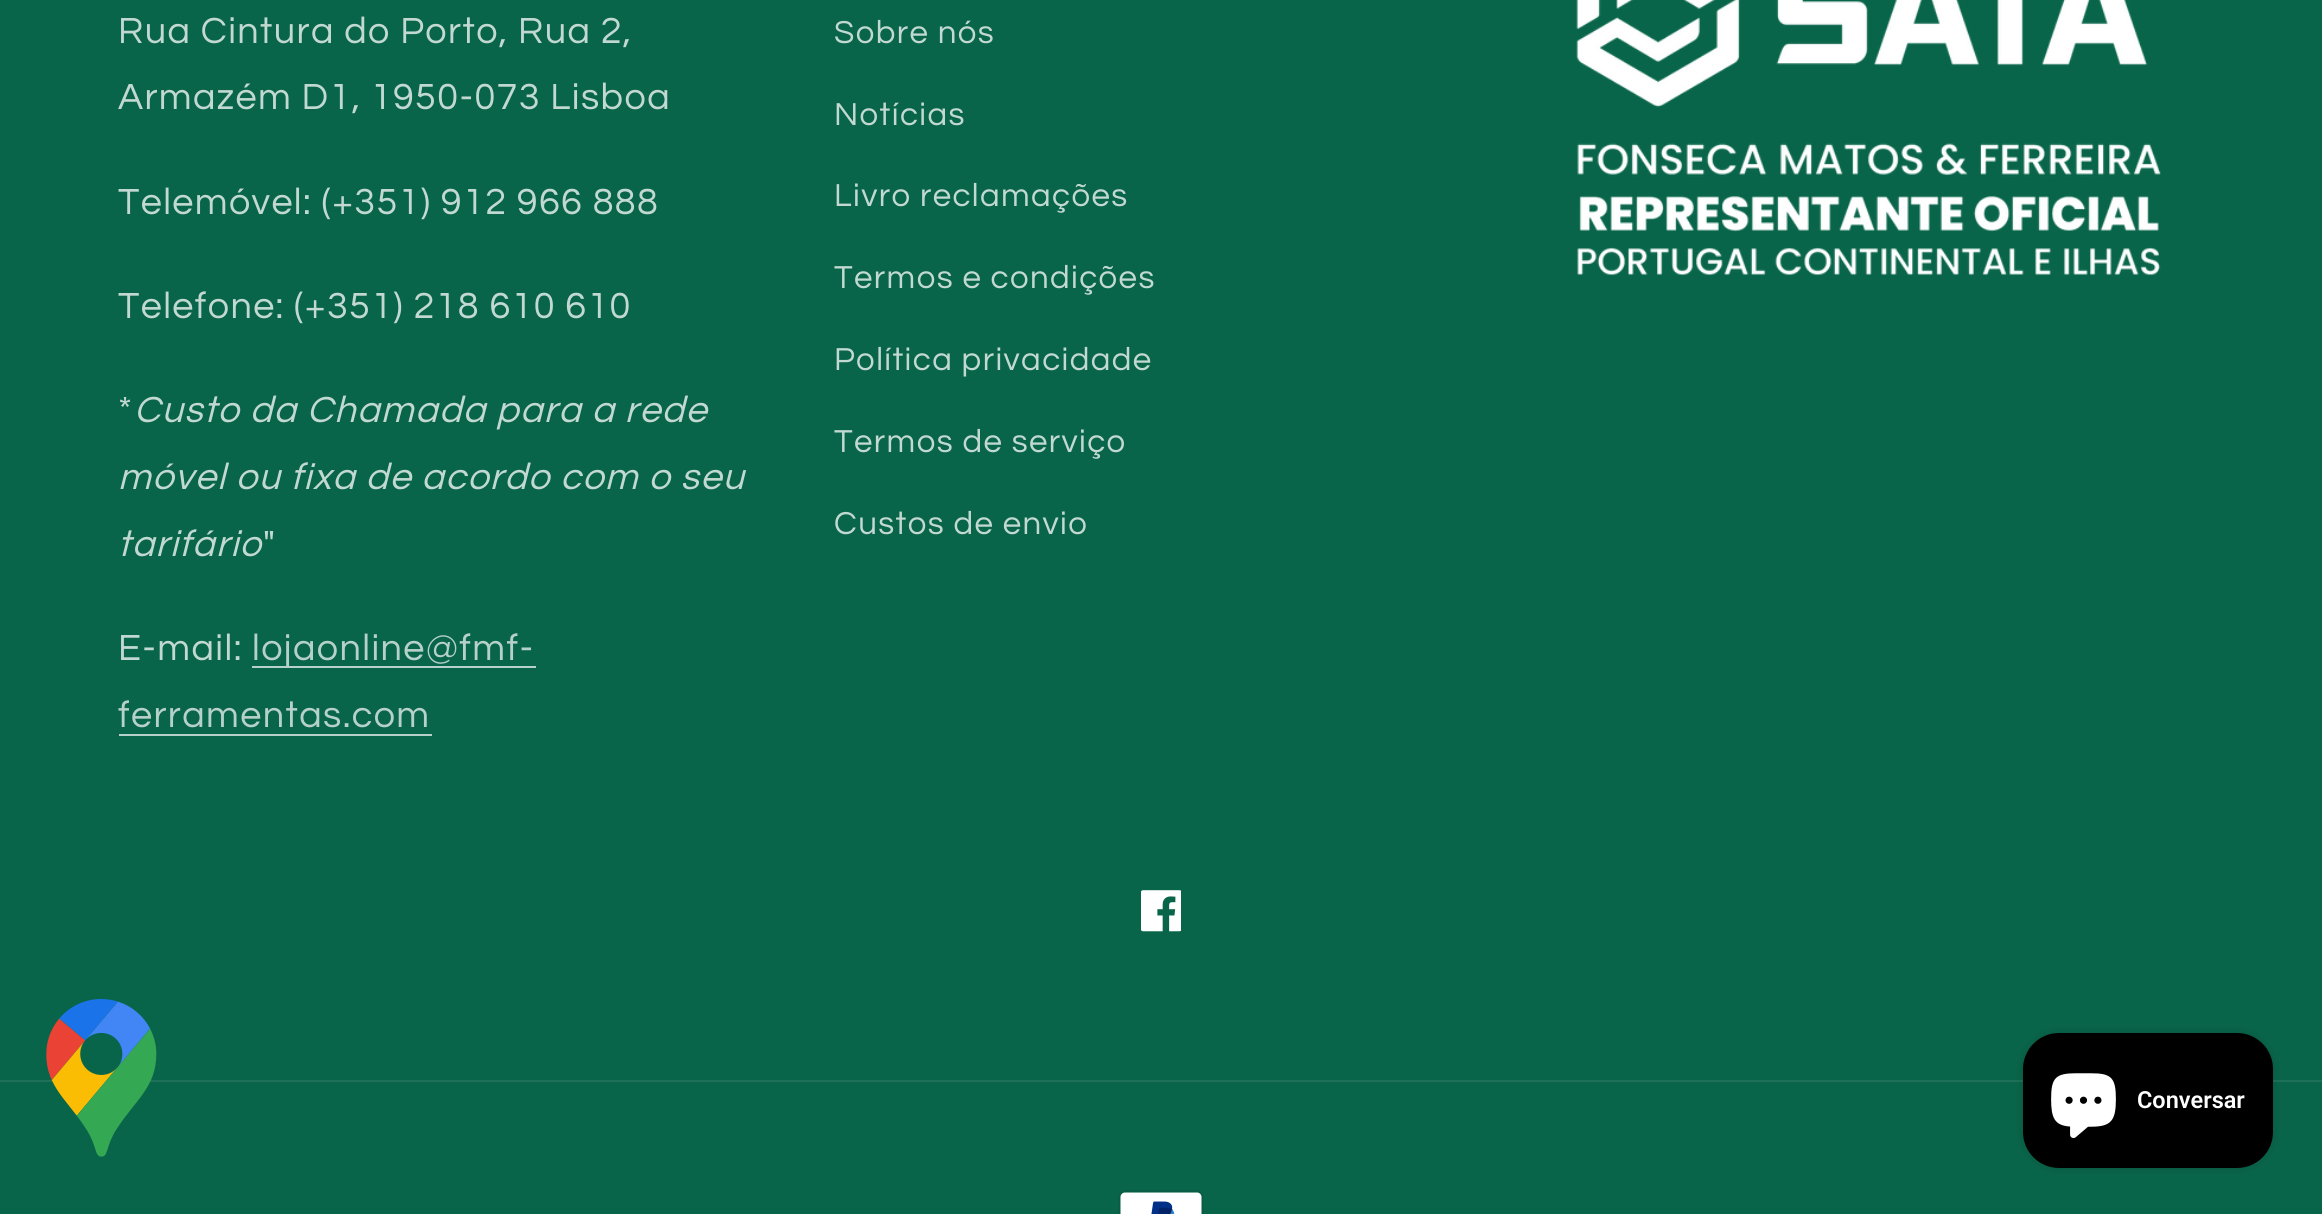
import math
import cairo


def write_spaced(ctx, x, y, s, letter, word):
	ctx.move_to(x, y)
	for ch in s:
		ctx.show_text(ch)
		ctx.rel_move_to(letter + word * (ch == ' '), 0)

def round_path(ctx, x, y, w, h, r):
	ctx.new_sub_path()
	for i, (u, v) in enumerate([(x + w - r, y + h - r), (x + r, y + h - r), (x + r, y + r), (x + w - r, y + r)]):
		ctx.arc(u, v, r, i * math.pi / 2, (i + 1) * math.pi / 2)
	ctx.close_path()

def blur_box(ctx, x, y, w, h, r, blur, alpha):
	ctx.push_group_with_content(cairo.CONTENT_ALPHA)
	ctx.set_operator(cairo.OPERATOR_SOURCE)
	for i in range(15, -16, -2):
		e = blur * i / 6
		if min(w, h) + 2 * e > 0:
			ctx.set_source_rgba(0, 0, 0, alpha * math.erfc((i - 1) / 8.5) / 2)
			round_path(ctx, x - e, y - e, w + 2 * e, h + 2 * e, max(0, min(r + e + blur * .6, min(w, h) / 2 + e)))
			ctx.fill()
	ctx.mask(ctx.pop_group())

def paste(ctx, path, x, y, w, h):
	ctx.save()
	ctx.set_source_surface(cairo.ImageSurface.create_from_png(path), x, y)
	ctx.rectangle(x, y, w, h)
	ctx.fill()
	ctx.restore()

def draw(ctx):
	ctx.set_source_rgb(0.039, 0.396, 0.29)
	ctx.paint()
	ctx.select_font_face('Questrial')
	ctx.set_font_size(37.75)
	ctx.set_source_rgb(0.761, 0.851, 0.824)
	for x, y, s in [
		(118, 43, 'Rua Cintura do Porto, Rua 2,'),
		(118, 109, 'Armazém D1, 1950-073 Lisboa'),
		(118, 214, 'Telemóvel: (+351) 912 966 888'),
		(118, 318, 'Telefone: (+351) 218 610 610'),
		(118, 422, '*'),
	]:
		write_spaced(ctx, x, y, s, 1.4, 0)
	ctx.select_font_face('Questrial', cairo.FONT_SLANT_ITALIC)
	for x, y, s in [
		(134, 422, 'Custo da Chamada para a rede'),
		(118, 489, 'móvel ou fixa de acordo com o seu'),
		(118, 556, 'tarifário'),
	]:
		write_spaced(ctx, x, y, s, 1.4, 0)
	ctx.select_font_face('Questrial')
	write_spaced(ctx, 263, 556, '"', 1.4, 0)
	write_spaced(ctx, 118, 660, 'E-mail:', 1.4, 0)
	ctx.set_source_rgb(0.714, 0.82, 0.788)
	ctx.rectangle(252, 666, 284, 2)
	ctx.fill()
	write_spaced(ctx, 252, 660, 'lojaonline@fmf-', 1.4, 0)
	write_spaced(ctx, 118, 727, 'ferramentas.com', 1.4, 0)
	ctx.rectangle(119, 734, 313, 2)
	ctx.fill()
	ctx.set_font_size(33)
	ctx.set_source_rgb(0.761, 0.851, 0.824)
	for x, y, s in [
		(834, 43, 'Sobre nós'),
		(834, 125, 'Notícias'),
		(834, 206, 'Livro reclamações'),
		(834, 288, 'Termos e condições'),
		(834, 370, 'Política privacidade'),
		(834, 452, 'Termos de serviço'),
		(834, 534, 'Custos de envio'),
	]:
		write_spaced(ctx, x, y, s, 1.4, 0)
	paste(ctx, 'media/1.png', 1576, 0, 585, 276)
	paste(ctx, 'media/2.png', 1141, 890, 40, 42)
	ctx.set_source_rgb(0.118, 0.443, 0.345)
	ctx.rectangle(0, 1080, 2322, 2)
	ctx.fill()
	paste(ctx, 'media/3.png', 1118, 1190, 86, 24)
	paste(ctx, 'media/4.png', 46, 999, 111, 158)
	ctx.set_source_rgb(0, 0, 0)
	blur_box(ctx, 2023, 1033, 250, 135, 36, 5.5, 0.15)
	ctx.set_source_rgb(0, 0, 0)
	round_path(ctx, 2023, 1033, 250, 135, 36)
	ctx.fill()
	paste(ctx, 'media/5.png', 2051, 1073, 65, 65)
	ctx.select_font_face('Roboto SemiBold')
	ctx.set_font_size(23.5)
	ctx.set_source_rgb(1, 1, 1)
	ctx.move_to(2137, 1108)
	ctx.show_text('Conversar')


surface = cairo.ImageSurface(cairo.FORMAT_RGB24, 2322, 1214)
ctx = cairo.Context(surface)
options = cairo.FontOptions()
options.set_hint_metrics(cairo.HINT_METRICS_OFF)
options.set_hint_style(cairo.HINT_STYLE_NONE)
ctx.set_font_options(options)
ctx.set_miter_limit(4)
draw(ctx)
surface.write_to_png('image.png')
